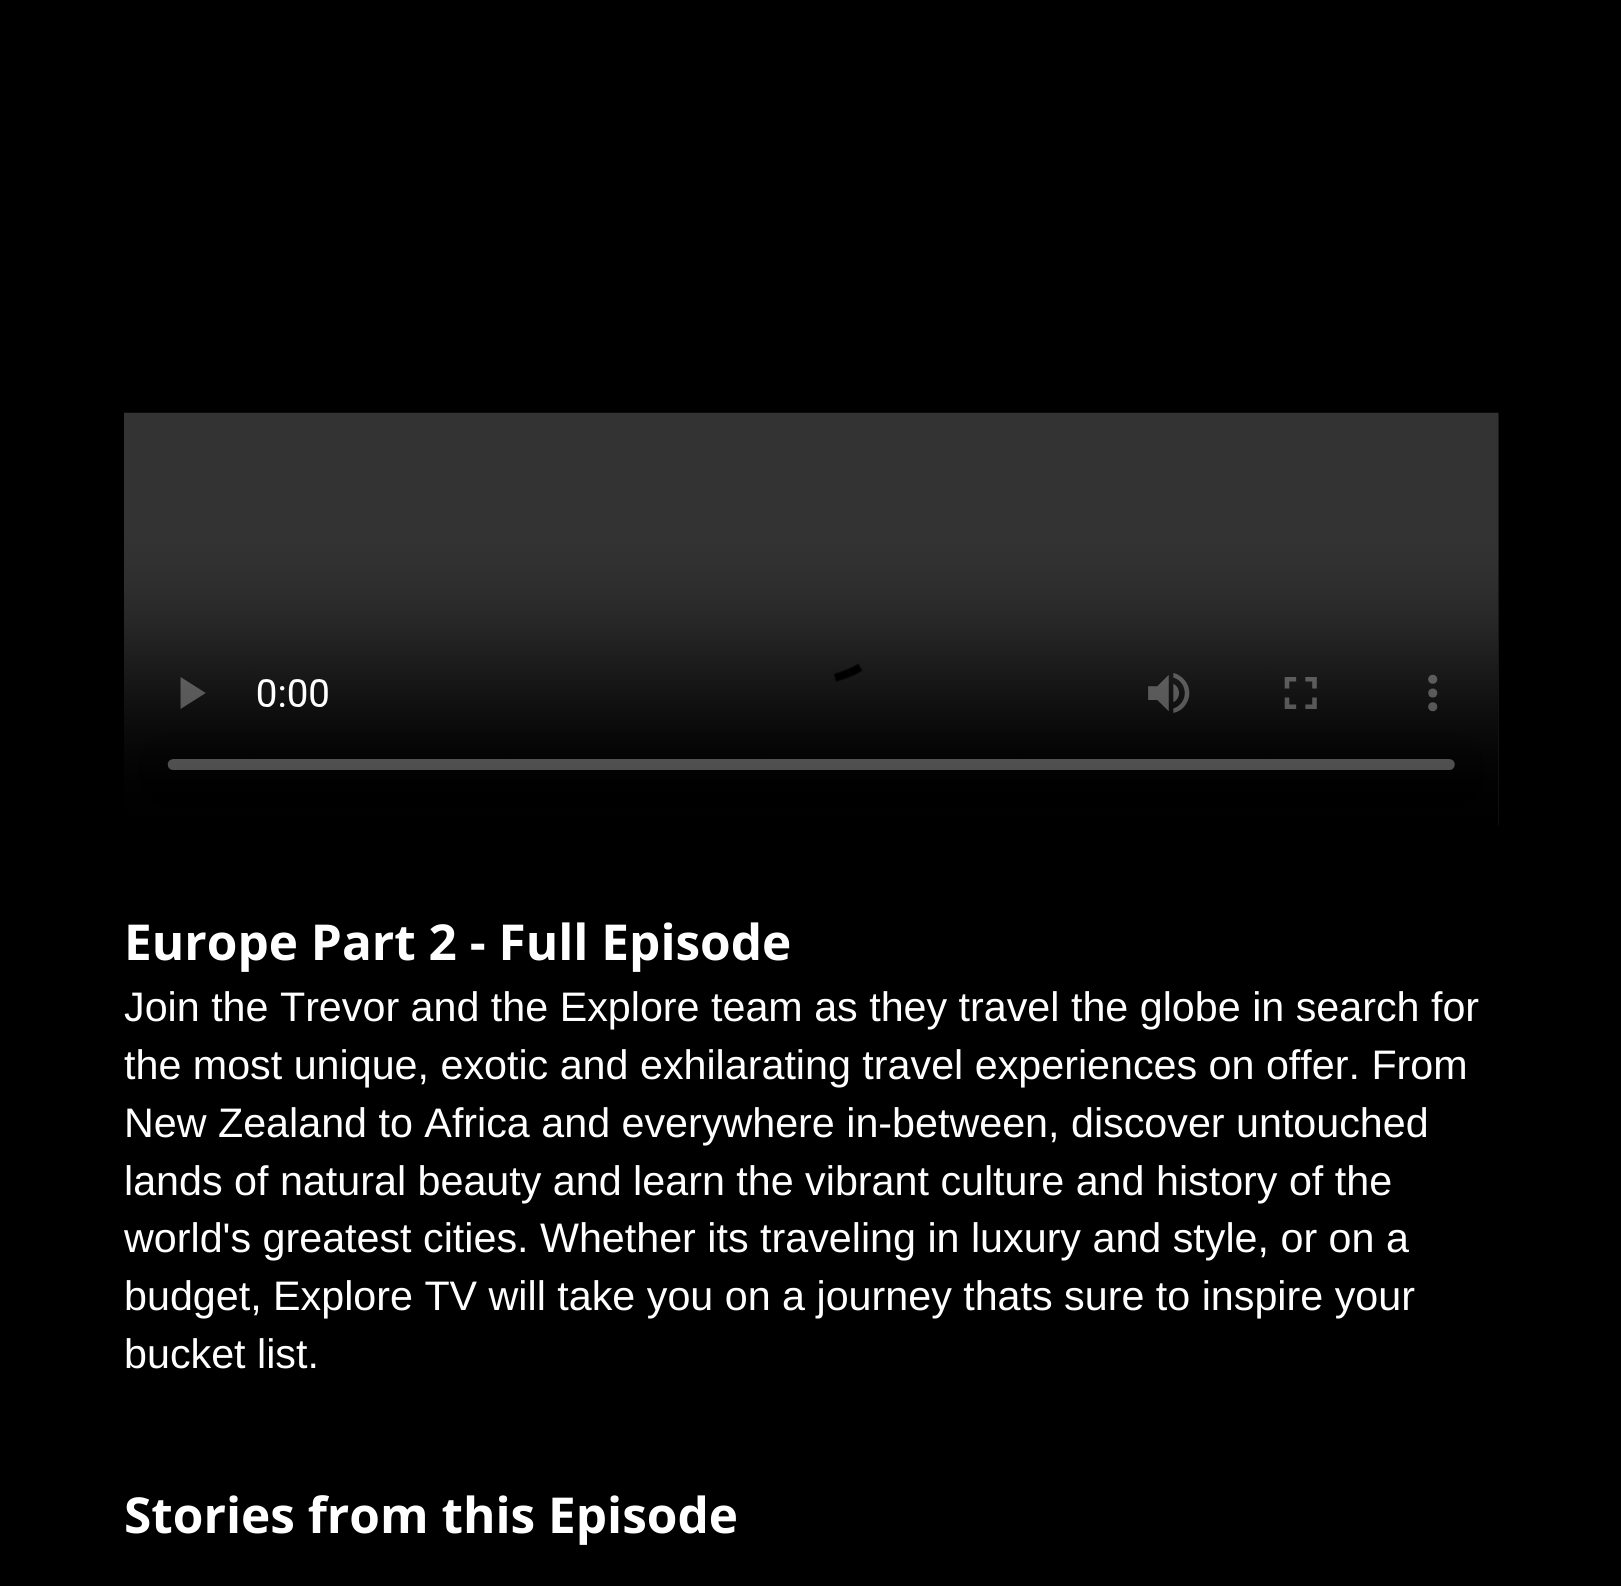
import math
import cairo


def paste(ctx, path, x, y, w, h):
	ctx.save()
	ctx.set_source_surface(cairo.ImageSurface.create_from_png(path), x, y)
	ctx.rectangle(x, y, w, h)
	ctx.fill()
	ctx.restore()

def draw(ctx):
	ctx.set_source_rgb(0, 0, 0)
	ctx.paint()
	paste(ctx, 'media/1.png', 124, 412, 1375, 413)
	ctx.select_font_face('Open Sans', cairo.FONT_SLANT_NORMAL, cairo.FONT_WEIGHT_BOLD)
	ctx.set_font_size(49.5)
	ctx.set_source_rgb(1, 1, 1)
	ctx.move_to(124, 960)
	ctx.show_text('Europe Part 2 - Full Episode')
	ctx.select_font_face('Liberation Sans')
	ctx.set_font_size(41.25)
	for x, y, s in [
		(124, 1021, 'Join the Trevor and the Explore team as they travel the globe in search for'),
		(124, 1079, 'the most unique, exotic and exhilarating travel experiences on offer. From'),
		(124, 1137, 'New Zealand to Africa and everywhere in-between, discover untouched'),
		(124, 1195, 'lands of natural beauty and learn the vibrant culture and history of the'),
		(124, 1252, 'world\'s greatest cities. Whether its traveling in luxury and style, or on a'),
		(124, 1310, 'budget, Explore TV will take you on a journey thats sure to inspire your'),
		(124, 1368, 'bucket list.'),
	]:
		ctx.move_to(x, y)
		ctx.show_text(s)
	ctx.select_font_face('Open Sans', cairo.FONT_SLANT_NORMAL, cairo.FONT_WEIGHT_BOLD)
	ctx.set_font_size(49.5)
	ctx.move_to(124, 1533)
	ctx.show_text('Stories from this Episode')


surface = cairo.ImageSurface(cairo.FORMAT_RGB24, 1621, 1586)
ctx = cairo.Context(surface)
options = cairo.FontOptions()
options.set_hint_metrics(cairo.HINT_METRICS_OFF)
options.set_hint_style(cairo.HINT_STYLE_NONE)
ctx.set_font_options(options)
ctx.set_miter_limit(4)
draw(ctx)
surface.write_to_png('image.png')
